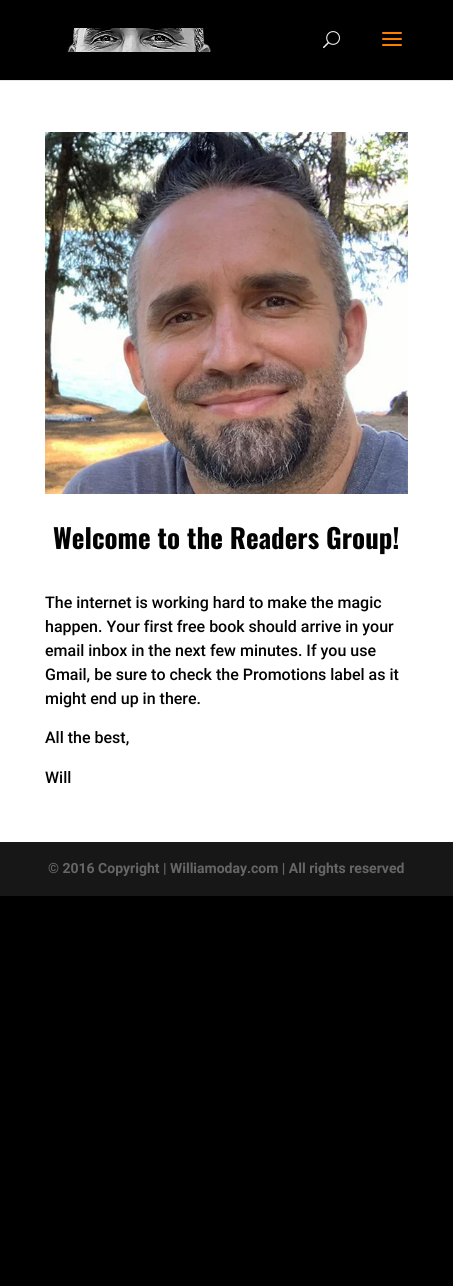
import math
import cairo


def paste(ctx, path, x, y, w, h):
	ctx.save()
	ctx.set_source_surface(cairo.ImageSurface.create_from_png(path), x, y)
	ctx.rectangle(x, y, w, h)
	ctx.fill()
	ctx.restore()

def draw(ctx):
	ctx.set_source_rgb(0, 0, 0)
	ctx.paint()
	ctx.set_source_rgb(0.902, 0.902, 0.902)
	ctx.rectangle(0, 80, 453, 1)
	ctx.fill()
	paste(ctx, 'media/1.png', 67, 28, 144, 24)
	paste(ctx, 'media/2.png', 323, 31, 17, 18)
	paste(ctx, 'media/3.png', 382, 32, 20, 14)
	ctx.set_source_rgb(1, 1, 1)
	ctx.rectangle(0, 81, 453, 761)
	ctx.fill()
	paste(ctx, 'media/4.png', 45, 132, 363, 362)
	ctx.select_font_face('Oswald', cairo.FONT_SLANT_NORMAL, cairo.FONT_WEIGHT_BOLD)
	ctx.set_font_size(27)
	ctx.set_source_rgb(0.008, 0.008, 0.008)
	ctx.move_to(53, 549)
	ctx.show_text('Welcome to the Readers Group!')
	ctx.select_font_face('Roboto Medium')
	ctx.set_font_size(16)
	for x, y, s in [
		(45, 608, 'The internet is working hard to make the magic'),
		(45, 632, 'happen. Your first free book should arrive in your'),
		(45, 656, 'email inbox in the next few minutes. If you use'),
		(45, 680, 'Gmail, be sure to check the Promotions label as it'),
		(45, 704, 'might end up in there.'),
		(45, 743, 'All the best,'),
		(45, 783, 'Will'),
	]:
		ctx.move_to(x, y)
		ctx.show_text(s)
	ctx.set_source_rgb(0.09, 0.09, 0.09)
	ctx.rectangle(0, 842, 453, 54)
	ctx.fill()
	ctx.select_font_face('Roboto', cairo.FONT_SLANT_NORMAL, cairo.FONT_WEIGHT_BOLD)
	ctx.set_font_size(14)
	ctx.set_source_rgb(0.4, 0.4, 0.4)
	ctx.move_to(48, 873)
	ctx.show_text('© 2016 Copyright | Williamoday.com | All rights reserved')


surface = cairo.ImageSurface(cairo.FORMAT_RGB24, 453, 1286)
ctx = cairo.Context(surface)
options = cairo.FontOptions()
options.set_hint_metrics(cairo.HINT_METRICS_OFF)
options.set_hint_style(cairo.HINT_STYLE_NONE)
ctx.set_font_options(options)
ctx.set_miter_limit(4)
draw(ctx)
surface.write_to_png('image.png')
